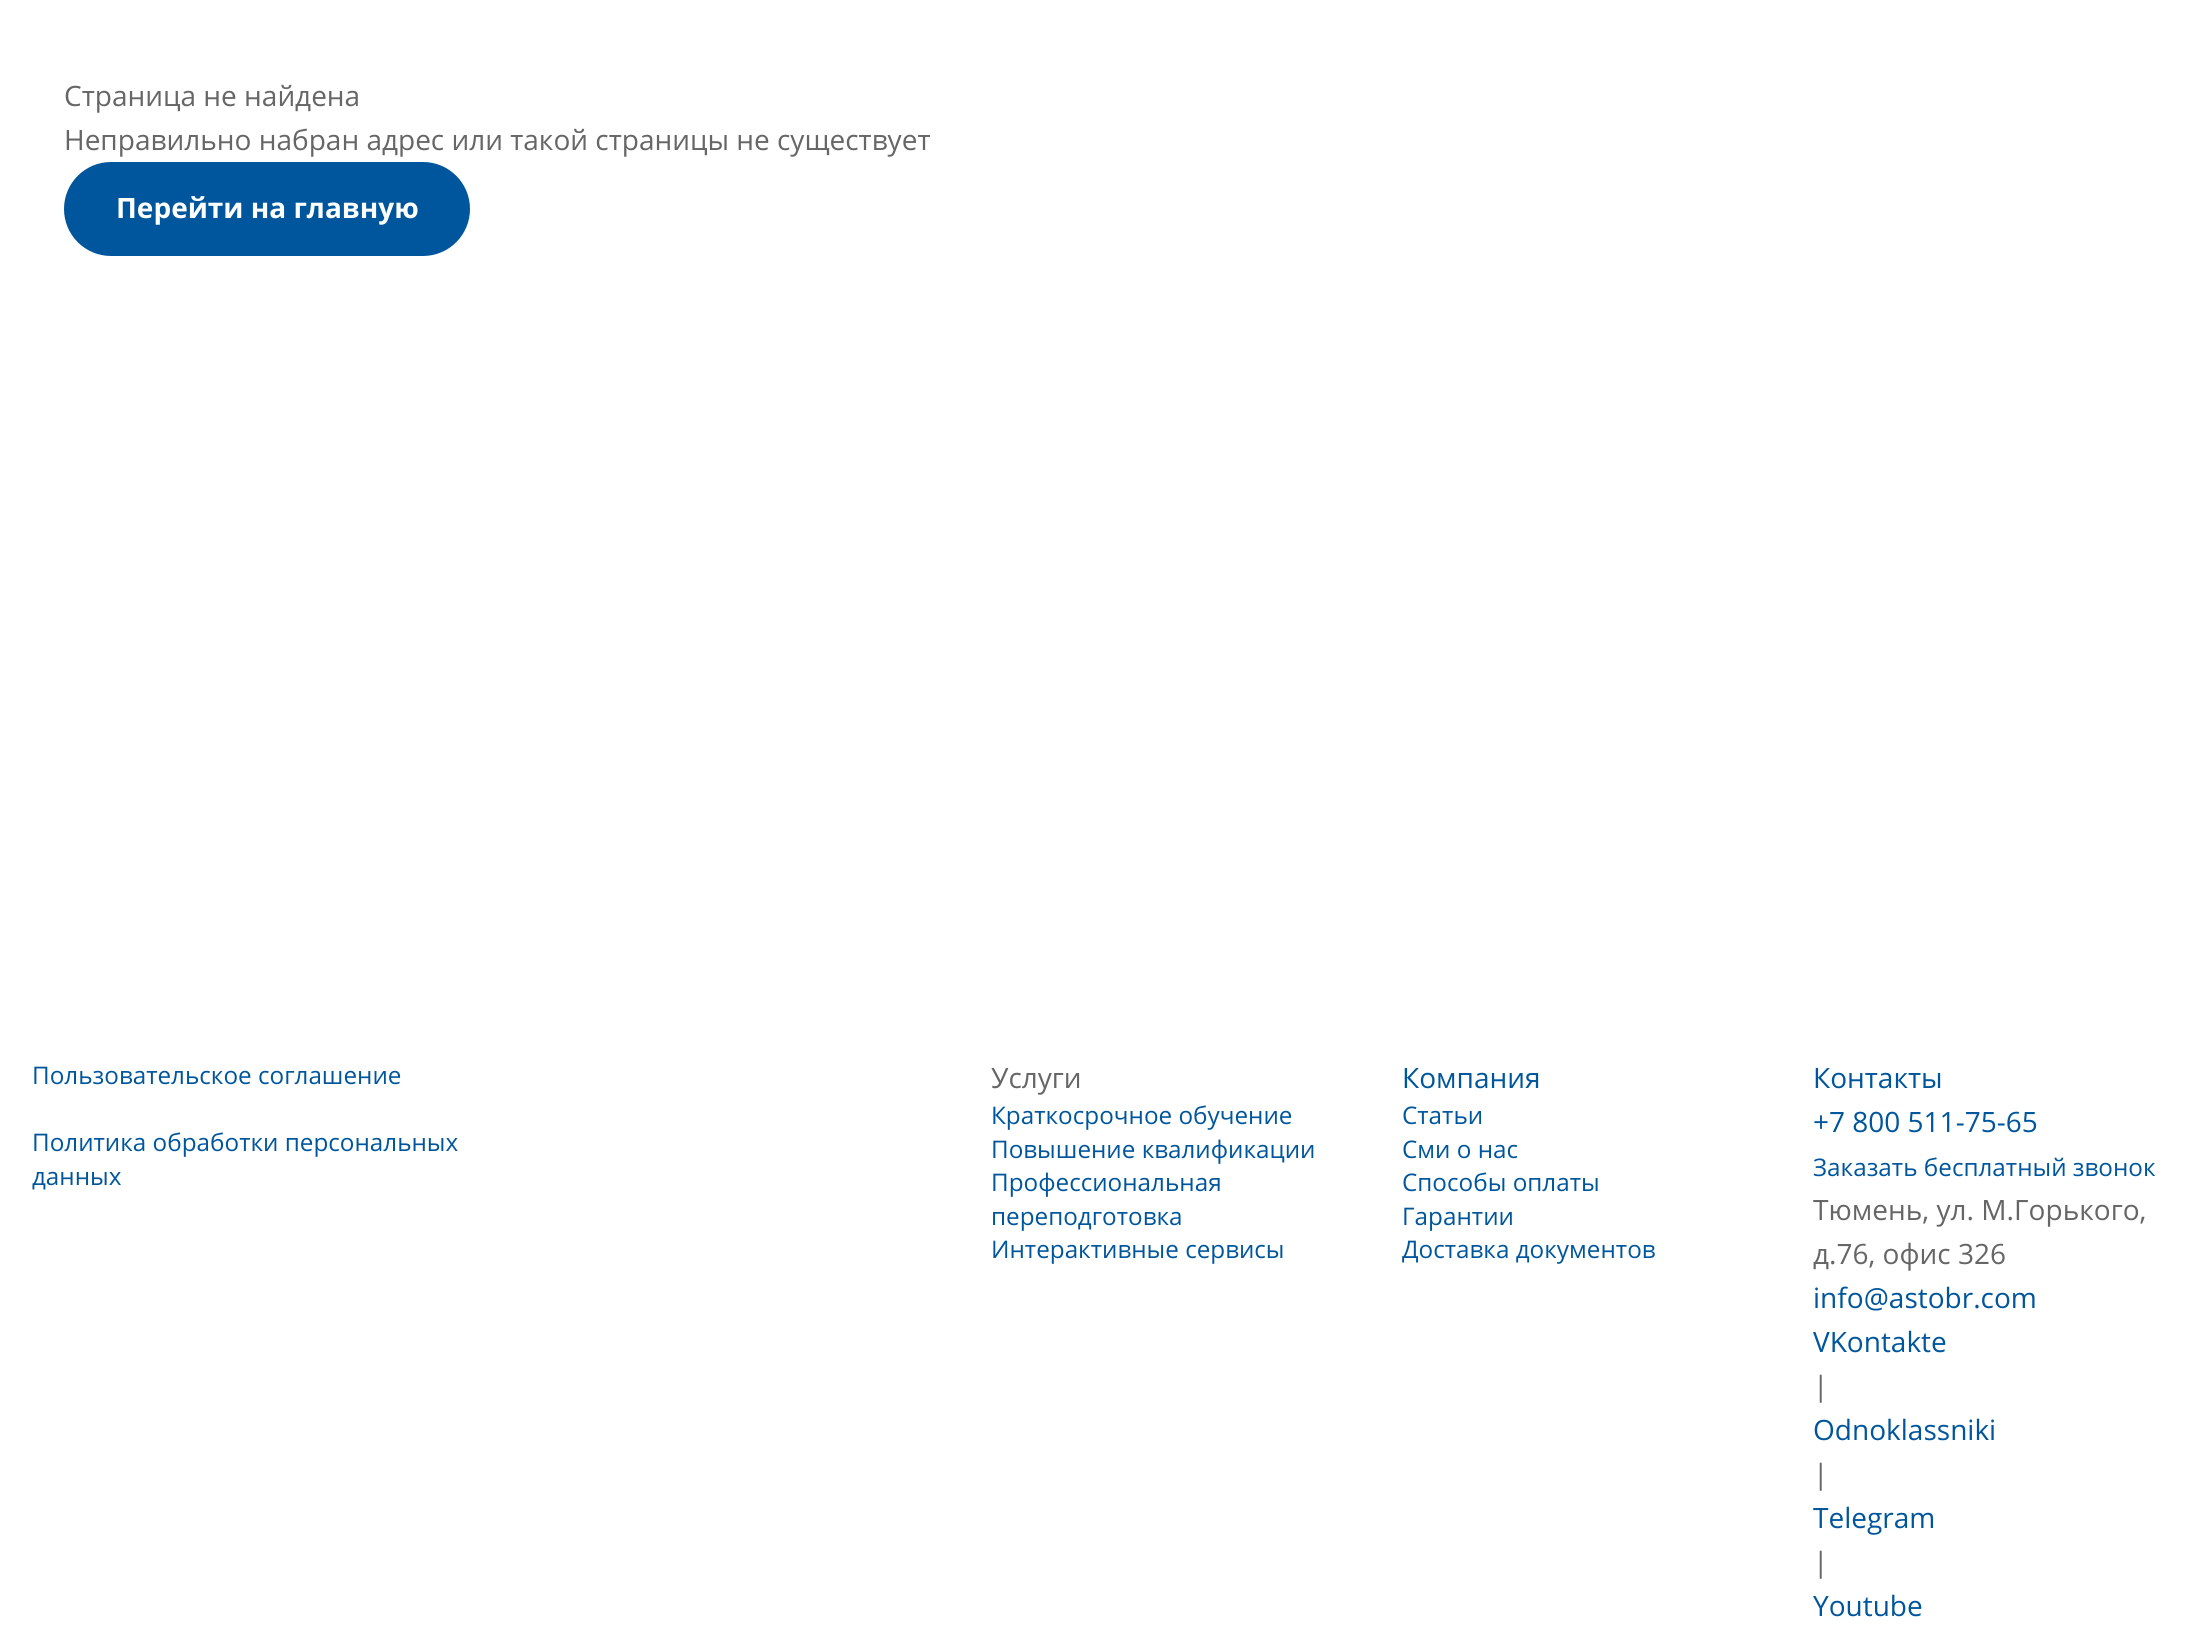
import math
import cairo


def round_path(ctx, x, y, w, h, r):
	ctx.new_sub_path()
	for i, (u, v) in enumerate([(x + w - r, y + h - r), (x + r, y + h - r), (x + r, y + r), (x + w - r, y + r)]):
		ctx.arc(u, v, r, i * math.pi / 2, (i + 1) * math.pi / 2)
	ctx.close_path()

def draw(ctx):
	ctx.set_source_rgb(1, 1, 1)
	ctx.paint()
	ctx.select_font_face('Open Sans')
	ctx.set_font_size(28)
	ctx.set_source_rgb(0.4, 0.4, 0.4)
	ctx.move_to(64, 106)
	ctx.show_text('Страница не найдена')
	ctx.move_to(64, 150)
	ctx.show_text('Неправильно набран адрес или такой страницы не существует')
	ctx.set_source_rgb(0, 0.337, 0.612)
	round_path(ctx, 65, 163, 404, 92, 46)
	ctx.fill_preserve()
	ctx.stroke()
	ctx.select_font_face('Open Sans', cairo.FONT_SLANT_NORMAL, cairo.FONT_WEIGHT_BOLD)
	ctx.set_source_rgb(1, 1, 1)
	ctx.move_to(116, 218)
	ctx.show_text('Перейти на главную')
	ctx.select_font_face('Open Sans')
	ctx.set_font_size(24.25)
	ctx.set_source_rgb(0, 0.337, 0.612)
	for x, y, s in [
		(32, 1084, 'Пользовательское соглашение'),
		(32, 1151, 'Политика обработки персональных'),
		(32, 1185, 'данных'),
	]:
		ctx.move_to(x, y)
		ctx.show_text(s)
	ctx.set_font_size(28)
	ctx.set_source_rgb(0.4, 0.4, 0.4)
	ctx.move_to(991, 1088)
	ctx.show_text('Услуги')
	ctx.set_font_size(24.25)
	ctx.set_source_rgb(0, 0.337, 0.612)
	for x, y, s in [
		(991, 1124, 'Краткосрочное обучение'),
		(991, 1158, 'Повышение квалификации'),
		(991, 1191, 'Профессиональная'),
		(991, 1225, 'переподготовка'),
		(991, 1258, 'Интерактивные сервисы'),
	]:
		ctx.move_to(x, y)
		ctx.show_text(s)
	ctx.set_font_size(28)
	ctx.move_to(1402, 1088)
	ctx.show_text('Компания')
	ctx.set_font_size(24.25)
	for x, y, s in [
		(1402, 1124, 'Статьи'),
		(1402, 1158, 'Сми о нас'),
		(1402, 1191, 'Способы оплаты'),
		(1402, 1225, 'Гарантии'),
		(1402, 1258, 'Доставка документов'),
	]:
		ctx.move_to(x, y)
		ctx.show_text(s)
	ctx.set_font_size(28)
	ctx.move_to(1813, 1088)
	ctx.show_text('Контакты')
	ctx.move_to(1813, 1132)
	ctx.show_text('+7 800 511-75-65')
	ctx.set_font_size(24.25)
	ctx.move_to(1813, 1176)
	ctx.show_text('Заказать бесплатный звонок')
	ctx.set_font_size(28)
	ctx.set_source_rgb(0.4, 0.4, 0.4)
	ctx.move_to(1813, 1220)
	ctx.show_text('Тюмень, ул. М.Горького,')
	ctx.move_to(1813, 1264)
	ctx.show_text('д.76, офис 326')
	ctx.set_source_rgb(0, 0.337, 0.612)
	ctx.move_to(1813, 1308)
	ctx.show_text('info@astobr.com')
	ctx.move_to(1813, 1352)
	ctx.show_text('VKontakte')
	ctx.set_source_rgb(0.4, 0.4, 0.4)
	ctx.move_to(1813, 1396)
	ctx.show_text('|')
	ctx.set_source_rgb(0, 0.337, 0.612)
	ctx.move_to(1813, 1440)
	ctx.show_text('Odnoklassniki')
	ctx.set_source_rgb(0.4, 0.4, 0.4)
	ctx.move_to(1813, 1484)
	ctx.show_text('|')
	ctx.set_source_rgb(0, 0.337, 0.612)
	ctx.move_to(1813, 1528)
	ctx.show_text('Telegram')
	ctx.set_source_rgb(0.4, 0.4, 0.4)
	ctx.move_to(1813, 1572)
	ctx.show_text('|')
	ctx.set_source_rgb(0, 0.337, 0.612)
	ctx.move_to(1813, 1616)
	ctx.show_text('Youtube')


surface = cairo.ImageSurface(cairo.FORMAT_RGB24, 2191, 1630)
ctx = cairo.Context(surface)
options = cairo.FontOptions()
options.set_hint_metrics(cairo.HINT_METRICS_OFF)
options.set_hint_style(cairo.HINT_STYLE_NONE)
ctx.set_font_options(options)
ctx.set_miter_limit(4)
draw(ctx)
surface.write_to_png('image.png')
